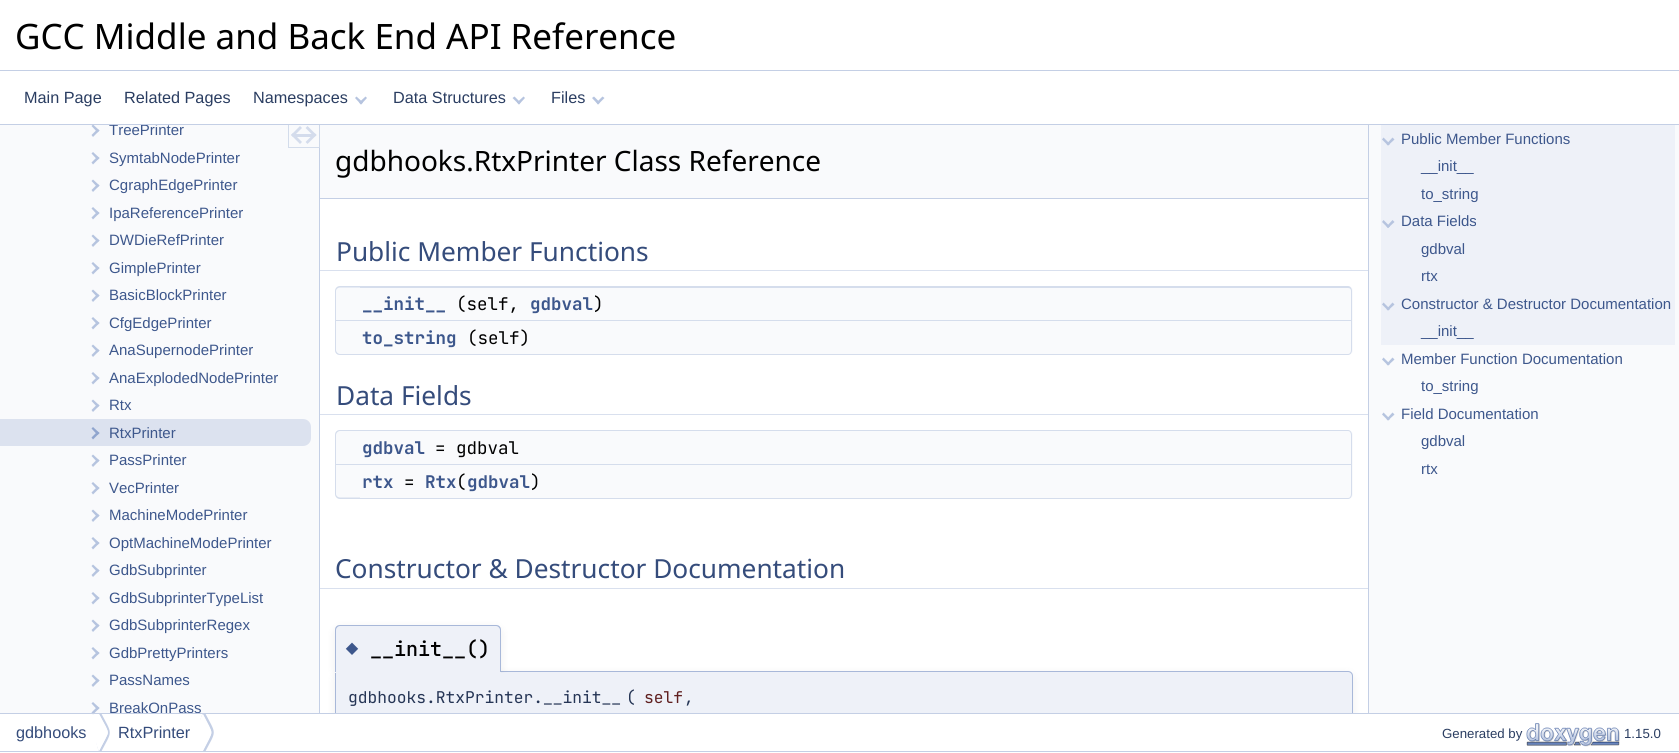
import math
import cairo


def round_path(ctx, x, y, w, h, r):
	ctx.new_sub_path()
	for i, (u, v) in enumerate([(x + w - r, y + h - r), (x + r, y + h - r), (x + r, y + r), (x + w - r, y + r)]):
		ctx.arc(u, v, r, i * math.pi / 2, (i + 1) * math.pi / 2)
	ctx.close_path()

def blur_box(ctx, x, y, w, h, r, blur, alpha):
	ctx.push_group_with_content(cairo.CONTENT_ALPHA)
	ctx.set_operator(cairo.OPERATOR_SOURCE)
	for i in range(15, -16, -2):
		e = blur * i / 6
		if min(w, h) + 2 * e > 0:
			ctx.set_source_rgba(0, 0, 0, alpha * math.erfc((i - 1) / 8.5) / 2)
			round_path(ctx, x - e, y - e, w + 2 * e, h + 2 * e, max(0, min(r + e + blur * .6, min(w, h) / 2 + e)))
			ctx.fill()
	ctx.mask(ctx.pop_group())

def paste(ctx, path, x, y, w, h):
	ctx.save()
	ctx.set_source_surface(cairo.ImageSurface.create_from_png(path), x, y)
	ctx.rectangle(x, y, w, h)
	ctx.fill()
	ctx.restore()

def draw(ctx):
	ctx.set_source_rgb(1, 1, 1)
	ctx.paint()
	ctx.set_source_rgb(0.769, 0.812, 0.898)
	ctx.rectangle(0, 70, 1679, 1)
	ctx.fill()
	ctx.select_font_face('Noto Sans')
	ctx.set_font_size(35)
	ctx.set_source_rgb(0, 0, 0)
	ctx.move_to(15, 49)
	ctx.show_text('GCC Middle and Back End API Reference')
	ctx.set_source_rgb(0.769, 0.812, 0.898)
	ctx.rectangle(0, 124, 1679, 1)
	ctx.fill()
	ctx.select_font_face('Liberation Sans')
	ctx.set_font_size(16.25)
	ctx.set_source_rgb(0.165, 0.239, 0.38)
	for x, y, s in [
		(24, 103, 'Main Page'),
		(124, 103, 'Related Pages'),
		(253, 103, 'Namespaces'),
	]:
		ctx.move_to(x, y)
		ctx.show_text(s)
	ctx.set_source_rgb(0.714, 0.769, 0.875)
	ctx.new_path()
	ctx.move_to(365.5, 96.5)
	ctx.line_to(367, 98)
	ctx.line_to(361, 104.5)
	ctx.line_to(359, 102.5)
	ctx.close_path()
	ctx.fill()
	ctx.new_path()
	ctx.move_to(356.5, 96.5)
	ctx.line_to(363, 102.5)
	ctx.line_to(361, 104.5)
	ctx.line_to(355, 98)
	ctx.close_path()
	ctx.fill()
	ctx.set_source_rgb(0.165, 0.239, 0.38)
	ctx.move_to(393, 103)
	ctx.show_text('Data Structures')
	ctx.set_source_rgb(0.714, 0.769, 0.875)
	ctx.new_path()
	ctx.move_to(523.5, 96.5)
	ctx.line_to(525, 98)
	ctx.line_to(519, 104.5)
	ctx.line_to(517, 102.5)
	ctx.close_path()
	ctx.fill()
	ctx.new_path()
	ctx.move_to(514.5, 96.5)
	ctx.line_to(520.5, 102.5)
	ctx.line_to(519, 104.5)
	ctx.line_to(512.5, 98)
	ctx.close_path()
	ctx.fill()
	ctx.set_source_rgb(0.165, 0.239, 0.38)
	ctx.move_to(551, 103)
	ctx.show_text('Files')
	ctx.set_source_rgb(0.714, 0.769, 0.875)
	ctx.new_path()
	ctx.move_to(602.5, 96.5)
	ctx.line_to(604.5, 98)
	ctx.line_to(598, 104.5)
	ctx.line_to(596.5, 102.5)
	ctx.close_path()
	ctx.fill()
	ctx.new_path()
	ctx.move_to(594, 96.5)
	ctx.line_to(600, 102.5)
	ctx.line_to(598, 104.5)
	ctx.line_to(592, 98)
	ctx.close_path()
	ctx.fill()
	ctx.set_source_rgb(0.976, 0.98, 0.988)
	ctx.rectangle(0, 125, 319, 588)
	ctx.fill()
	ctx.save()
	ctx.rectangle(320, 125, 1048, 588)
	ctx.clip()
	ctx.set_source_rgb(0, 0, 0)
	blur_box(ctx, 335, 674, 1018, 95, 5, 5, 0.07)
	ctx.restore()
	ctx.set_source_rgb(0.769, 0.812, 0.898)
	ctx.rectangle(319, 148, 1, 565)
	ctx.fill()
	ctx.set_source_rgb(0.914, 0.929, 0.961)
	ctx.rectangle(319, 125, 1, 23)
	ctx.fill()
	ctx.set_source_rgb(0.714, 0.769, 0.875)
	ctx.new_path()
	ctx.move_to(91.5, 126)
	ctx.line_to(93, 124.5)
	ctx.line_to(99.5, 130.5)
	ctx.line_to(97.5, 132.5)
	ctx.close_path()
	ctx.fill()
	ctx.new_path()
	ctx.move_to(91.5, 135)
	ctx.line_to(97.5, 129)
	ctx.line_to(99.5, 130.5)
	ctx.line_to(93, 137)
	ctx.close_path()
	ctx.move_to(91.5, 153.5)
	ctx.line_to(93, 152)
	ctx.line_to(99.5, 158)
	ctx.line_to(97.5, 160)
	ctx.close_path()
	ctx.fill()
	ctx.save()
	ctx.rectangle(0, 125, 319, 588)
	ctx.clip()
	ctx.set_font_size(15)
	ctx.set_source_rgb(0.239, 0.341, 0.549)
	ctx.move_to(109, 135)
	ctx.show_text('TreePrinter')
	ctx.restore()
	ctx.new_path()
	ctx.move_to(91.5, 162.5)
	ctx.line_to(97.5, 156.5)
	ctx.line_to(99.5, 158)
	ctx.line_to(93, 164.5)
	ctx.close_path()
	ctx.move_to(91.5, 181)
	ctx.line_to(93, 179.5)
	ctx.line_to(99.5, 185.5)
	ctx.line_to(97.5, 187.5)
	ctx.close_path()
	ctx.fill()
	ctx.set_font_size(15)
	ctx.set_source_rgb(0.239, 0.341, 0.549)
	ctx.move_to(109, 163)
	ctx.show_text('SymtabNodePrinter')
	ctx.set_source_rgb(0.714, 0.769, 0.875)
	ctx.new_path()
	ctx.move_to(91.5, 190)
	ctx.line_to(97.5, 184)
	ctx.line_to(99.5, 185.5)
	ctx.line_to(93, 192)
	ctx.close_path()
	ctx.move_to(91.5, 208.5)
	ctx.line_to(93, 207)
	ctx.line_to(99.5, 213)
	ctx.line_to(97.5, 215)
	ctx.close_path()
	ctx.fill()
	ctx.set_source_rgb(0.239, 0.341, 0.549)
	ctx.move_to(109, 190)
	ctx.show_text('CgraphEdgePrinter')
	ctx.set_source_rgb(0.714, 0.769, 0.875)
	ctx.new_path()
	ctx.move_to(91.5, 217.5)
	ctx.line_to(97.5, 211.5)
	ctx.line_to(99.5, 213)
	ctx.line_to(93, 219.5)
	ctx.close_path()
	ctx.move_to(91.5, 236)
	ctx.line_to(93, 234.5)
	ctx.line_to(99.5, 240.5)
	ctx.line_to(97.5, 242.5)
	ctx.close_path()
	ctx.fill()
	ctx.set_source_rgb(0.239, 0.341, 0.549)
	ctx.move_to(109, 218)
	ctx.show_text('IpaReferencePrinter')
	ctx.set_source_rgb(0.714, 0.769, 0.875)
	ctx.new_path()
	ctx.move_to(91.5, 245)
	ctx.line_to(97.5, 239)
	ctx.line_to(99.5, 240.5)
	ctx.line_to(93, 247)
	ctx.close_path()
	ctx.move_to(91.5, 263.5)
	ctx.line_to(93, 262)
	ctx.line_to(99.5, 268)
	ctx.line_to(97.5, 270)
	ctx.close_path()
	ctx.fill()
	ctx.set_source_rgb(0.239, 0.341, 0.549)
	ctx.move_to(109, 245)
	ctx.show_text('DWDieRefPrinter')
	ctx.set_source_rgb(0.714, 0.769, 0.875)
	ctx.new_path()
	ctx.move_to(91.5, 272.5)
	ctx.line_to(97.5, 266.5)
	ctx.line_to(99.5, 268)
	ctx.line_to(93, 274.5)
	ctx.close_path()
	ctx.move_to(91.5, 291)
	ctx.line_to(93, 289.5)
	ctx.line_to(99.5, 295.5)
	ctx.line_to(97.5, 297.5)
	ctx.close_path()
	ctx.fill()
	ctx.set_source_rgb(0.239, 0.341, 0.549)
	ctx.move_to(109, 273)
	ctx.show_text('GimplePrinter')
	ctx.set_source_rgb(0.714, 0.769, 0.875)
	ctx.new_path()
	ctx.move_to(91.5, 300)
	ctx.line_to(97.5, 294)
	ctx.line_to(99.5, 295.5)
	ctx.line_to(93, 302)
	ctx.close_path()
	ctx.move_to(91.5, 318.5)
	ctx.line_to(93, 317)
	ctx.line_to(99.5, 323)
	ctx.line_to(97.5, 325)
	ctx.close_path()
	ctx.fill()
	ctx.set_source_rgb(0.239, 0.341, 0.549)
	ctx.move_to(109, 300)
	ctx.show_text('BasicBlockPrinter')
	ctx.set_source_rgb(0.714, 0.769, 0.875)
	ctx.new_path()
	ctx.move_to(91.5, 327.5)
	ctx.line_to(97.5, 321.5)
	ctx.line_to(99.5, 323)
	ctx.line_to(93, 329.5)
	ctx.close_path()
	ctx.move_to(91.5, 346)
	ctx.line_to(93, 344.5)
	ctx.line_to(99.5, 350.5)
	ctx.line_to(97.5, 352.5)
	ctx.close_path()
	ctx.fill()
	ctx.set_source_rgb(0.239, 0.341, 0.549)
	ctx.move_to(109, 328)
	ctx.show_text('CfgEdgePrinter')
	ctx.set_source_rgb(0.714, 0.769, 0.875)
	ctx.new_path()
	ctx.move_to(91.5, 355)
	ctx.line_to(97.5, 349)
	ctx.line_to(99.5, 350.5)
	ctx.line_to(93, 357)
	ctx.close_path()
	ctx.move_to(91.5, 373.5)
	ctx.line_to(93, 372)
	ctx.line_to(99.5, 378)
	ctx.line_to(97.5, 380)
	ctx.close_path()
	ctx.fill()
	ctx.set_source_rgb(0.239, 0.341, 0.549)
	ctx.move_to(109, 355)
	ctx.show_text('AnaSupernodePrinter')
	ctx.set_source_rgb(0.714, 0.769, 0.875)
	ctx.new_path()
	ctx.move_to(91.5, 382.5)
	ctx.line_to(97.5, 376.5)
	ctx.line_to(99.5, 378)
	ctx.line_to(93, 384.5)
	ctx.close_path()
	ctx.move_to(91.5, 401)
	ctx.line_to(93, 399.5)
	ctx.line_to(99.5, 405.5)
	ctx.line_to(97.5, 407.5)
	ctx.close_path()
	ctx.fill()
	ctx.set_source_rgb(0.239, 0.341, 0.549)
	ctx.move_to(109, 383)
	ctx.show_text('AnaExplodedNodePrinter')
	ctx.set_source_rgb(0.714, 0.769, 0.875)
	ctx.new_path()
	ctx.move_to(91.5, 410)
	ctx.line_to(97.5, 404)
	ctx.line_to(99.5, 405.5)
	ctx.line_to(93, 412)
	ctx.close_path()
	ctx.fill()
	ctx.set_source_rgb(0.239, 0.341, 0.549)
	ctx.move_to(109, 410)
	ctx.show_text('Rtx')
	ctx.set_source_rgb(0.863, 0.886, 0.937)
	ctx.new_path()
	ctx.move_to(0, 419)
	ctx.line_to(303, 419)
	ctx.curve_to(307.5, 419, 311, 422.5, 311, 427)
	ctx.line_to(311, 438)
	ctx.curve_to(311, 442.5, 307.5, 446, 303, 446)
	ctx.line_to(0, 446)
	ctx.close_path()
	ctx.fill()
	ctx.set_source_rgb(0.565, 0.647, 0.808)
	ctx.new_path()
	ctx.move_to(91.5, 428.5)
	ctx.line_to(93, 427)
	ctx.line_to(99.5, 433)
	ctx.line_to(97.5, 435)
	ctx.close_path()
	ctx.fill()
	ctx.new_path()
	ctx.move_to(91.5, 437.5)
	ctx.line_to(97.5, 431.5)
	ctx.line_to(99.5, 433)
	ctx.line_to(93, 439.5)
	ctx.close_path()
	ctx.fill()
	ctx.set_source_rgb(0.239, 0.341, 0.549)
	ctx.move_to(109, 438)
	ctx.show_text('RtxPrinter')
	ctx.set_source_rgb(0.714, 0.769, 0.875)
	ctx.new_path()
	ctx.move_to(91.5, 456)
	ctx.line_to(93, 454.5)
	ctx.line_to(99.5, 460.5)
	ctx.line_to(97.5, 462.5)
	ctx.close_path()
	ctx.fill()
	ctx.new_path()
	ctx.move_to(91.5, 465)
	ctx.line_to(97.5, 459)
	ctx.line_to(99.5, 460.5)
	ctx.line_to(93, 467)
	ctx.close_path()
	ctx.move_to(91.5, 483.5)
	ctx.line_to(93, 482)
	ctx.line_to(99.5, 488)
	ctx.line_to(97.5, 490)
	ctx.close_path()
	ctx.fill()
	ctx.set_source_rgb(0.239, 0.341, 0.549)
	ctx.move_to(109, 465)
	ctx.show_text('PassPrinter')
	ctx.set_source_rgb(0.714, 0.769, 0.875)
	ctx.new_path()
	ctx.move_to(91.5, 492.5)
	ctx.line_to(97.5, 486.5)
	ctx.line_to(99.5, 488)
	ctx.line_to(93, 494.5)
	ctx.close_path()
	ctx.move_to(91.5, 511)
	ctx.line_to(93, 509.5)
	ctx.line_to(99.5, 515.5)
	ctx.line_to(97.5, 517.5)
	ctx.close_path()
	ctx.fill()
	ctx.set_source_rgb(0.239, 0.341, 0.549)
	ctx.move_to(109, 493)
	ctx.show_text('VecPrinter')
	ctx.set_source_rgb(0.714, 0.769, 0.875)
	ctx.new_path()
	ctx.move_to(91.5, 520)
	ctx.line_to(97.5, 514)
	ctx.line_to(99.5, 515.5)
	ctx.line_to(93, 522)
	ctx.close_path()
	ctx.move_to(91.5, 538.5)
	ctx.line_to(93, 537)
	ctx.line_to(99.5, 543)
	ctx.line_to(97.5, 545)
	ctx.close_path()
	ctx.fill()
	ctx.set_source_rgb(0.239, 0.341, 0.549)
	ctx.move_to(109, 520)
	ctx.show_text('MachineModePrinter')
	ctx.set_source_rgb(0.714, 0.769, 0.875)
	ctx.new_path()
	ctx.move_to(91.5, 547.5)
	ctx.line_to(97.5, 541.5)
	ctx.line_to(99.5, 543)
	ctx.line_to(93, 549.5)
	ctx.close_path()
	ctx.move_to(91.5, 566)
	ctx.line_to(93, 564.5)
	ctx.line_to(99.5, 570.5)
	ctx.line_to(97.5, 572.5)
	ctx.close_path()
	ctx.fill()
	ctx.set_source_rgb(0.239, 0.341, 0.549)
	ctx.move_to(109, 548)
	ctx.show_text('OptMachineModePrinter')
	ctx.set_source_rgb(0.714, 0.769, 0.875)
	ctx.new_path()
	ctx.move_to(91.5, 575)
	ctx.line_to(97.5, 569)
	ctx.line_to(99.5, 570.5)
	ctx.line_to(93, 577)
	ctx.close_path()
	ctx.move_to(91.5, 593.5)
	ctx.line_to(93, 592)
	ctx.line_to(99.5, 598)
	ctx.line_to(97.5, 600)
	ctx.close_path()
	ctx.fill()
	ctx.set_source_rgb(0.239, 0.341, 0.549)
	ctx.move_to(109, 575)
	ctx.show_text('GdbSubprinter')
	ctx.set_source_rgb(0.714, 0.769, 0.875)
	ctx.new_path()
	ctx.move_to(91.5, 602.5)
	ctx.line_to(97.5, 596.5)
	ctx.line_to(99.5, 598)
	ctx.line_to(93, 604.5)
	ctx.close_path()
	ctx.move_to(91.5, 621)
	ctx.line_to(93, 619.5)
	ctx.line_to(99.5, 625.5)
	ctx.line_to(97.5, 627.5)
	ctx.close_path()
	ctx.fill()
	ctx.set_source_rgb(0.239, 0.341, 0.549)
	ctx.move_to(109, 603)
	ctx.show_text('GdbSubprinterTypeList')
	ctx.set_source_rgb(0.714, 0.769, 0.875)
	ctx.new_path()
	ctx.move_to(91.5, 630)
	ctx.line_to(97.5, 624)
	ctx.line_to(99.5, 625.5)
	ctx.line_to(93, 632)
	ctx.close_path()
	ctx.move_to(91.5, 648.5)
	ctx.line_to(93, 647)
	ctx.line_to(99.5, 653)
	ctx.line_to(97.5, 655)
	ctx.close_path()
	ctx.fill()
	ctx.set_source_rgb(0.239, 0.341, 0.549)
	ctx.move_to(109, 630)
	ctx.show_text('GdbSubprinterRegex')
	ctx.set_source_rgb(0.714, 0.769, 0.875)
	ctx.new_path()
	ctx.move_to(91.5, 657.5)
	ctx.line_to(97.5, 651.5)
	ctx.line_to(99.5, 653)
	ctx.line_to(93, 659.5)
	ctx.close_path()
	ctx.move_to(91.5, 676)
	ctx.line_to(93, 674.5)
	ctx.line_to(99.5, 680.5)
	ctx.line_to(97.5, 682.5)
	ctx.close_path()
	ctx.fill()
	ctx.set_source_rgb(0.239, 0.341, 0.549)
	ctx.move_to(109, 658)
	ctx.show_text('GdbPrettyPrinters')
	ctx.set_source_rgb(0.714, 0.769, 0.875)
	ctx.new_path()
	ctx.move_to(91.5, 685)
	ctx.line_to(97.5, 679)
	ctx.line_to(99.5, 680.5)
	ctx.line_to(93, 687)
	ctx.close_path()
	ctx.move_to(91.5, 703.5)
	ctx.line_to(93, 702)
	ctx.line_to(99.5, 708)
	ctx.line_to(97.5, 710)
	ctx.close_path()
	ctx.fill()
	ctx.set_source_rgb(0.239, 0.341, 0.549)
	ctx.move_to(109, 685)
	ctx.show_text('PassNames')
	ctx.set_source_rgb(0.714, 0.769, 0.875)
	ctx.new_path()
	ctx.move_to(91.5, 712.5)
	ctx.line_to(97.5, 706.5)
	ctx.line_to(99.5, 708)
	ctx.line_to(93, 714.5)
	ctx.close_path()
	ctx.fill()
	ctx.set_source_rgb(0.239, 0.341, 0.549)
	ctx.move_to(109, 713)
	ctx.show_text('BreakOnPass')
	ctx.save()
	ctx.rectangle(0, 125, 328, 588)
	ctx.clip()
	ctx.rectangle(288.5, 124.5, 31, 23)
	ctx.set_source_rgba(0.769, 0.812, 0.898, 0.7)
	ctx.set_line_width(1)
	ctx.stroke()
	ctx.restore()
	ctx.set_source_rgb(0.831, 0.863, 0.925)
	ctx.new_path()
	ctx.move_to(291, 135)
	ctx.line_to(300, 126)
	ctx.line_to(302, 128)
	ctx.line_to(293, 137)
	ctx.close_path()
	ctx.fill()
	ctx.new_path()
	ctx.move_to(291, 135)
	ctx.line_to(293, 133)
	ctx.line_to(302, 142)
	ctx.line_to(300, 144)
	ctx.close_path()
	ctx.move_to(305.5, 128)
	ctx.line_to(307.5, 126)
	ctx.line_to(316.5, 135)
	ctx.line_to(314.5, 137)
	ctx.close_path()
	ctx.fill()
	ctx.new_path()
	ctx.move_to(305.5, 142)
	ctx.line_to(314.5, 133)
	ctx.line_to(316.5, 135)
	ctx.line_to(307.5, 144)
	ctx.close_path()
	ctx.fill()
	ctx.rectangle(294, 134, 20, 3)
	ctx.fill()
	ctx.set_source_rgb(0.976, 0.98, 0.988)
	ctx.rectangle(320, 125, 1048, 73)
	ctx.fill()
	ctx.set_source_rgb(0.769, 0.812, 0.898)
	ctx.rectangle(320, 198, 1048, 1)
	ctx.fill()
	ctx.select_font_face('Noto Sans')
	ctx.set_font_size(28)
	ctx.set_source_rgb(0, 0, 0)
	ctx.move_to(335, 171)
	ctx.show_text('gdbhooks.RtxPrinter Class Reference')
	ctx.set_source_rgb(0.851, 0.878, 0.933)
	ctx.new_path()
	ctx.move_to(320, 229)
	ctx.line_to(320, 271)
	ctx.line_to(1335, 271)
	ctx.line_to(1335, 270)
	ctx.line_to(336, 270)
	ctx.line_to(336, 229)
	ctx.close_path()
	ctx.fill()
	ctx.new_path()
	ctx.move_to(353, 270)
	ctx.line_to(353, 271)
	ctx.line_to(1368, 271)
	ctx.line_to(1368, 229)
	ctx.line_to(1351, 229)
	ctx.line_to(1351, 270)
	ctx.close_path()
	ctx.fill()
	ctx.set_source_rgb(1, 1, 1)
	ctx.rectangle(320, 229, 16, 41)
	ctx.fill()
	ctx.rectangle(1351, 229, 17, 41)
	ctx.fill()
	ctx.set_font_size(26.25)
	ctx.set_source_rgb(0.208, 0.298, 0.482)
	ctx.move_to(336, 261)
	ctx.show_text('Public Member Functions')
	ctx.set_source_rgb(0.976, 0.98, 0.988)
	ctx.new_path()
	ctx.move_to(340, 286)
	ctx.line_to(360, 286)
	ctx.line_to(360, 321)
	ctx.line_to(335, 321)
	ctx.line_to(335, 291)
	ctx.curve_to(335, 288, 337, 286, 340, 286)
	ctx.close_path()
	ctx.fill()
	ctx.set_source_rgb(0.835, 0.867, 0.925)
	ctx.set_fill_rule(cairo.FILL_RULE_EVEN_ODD)
	ctx.new_path()
	ctx.move_to(340, 286)
	ctx.line_to(360, 286)
	ctx.line_to(360, 321)
	ctx.line_to(335, 321)
	ctx.line_to(335, 291)
	ctx.curve_to(335, 288.5, 337, 286, 340, 286)
	ctx.close_path()
	ctx.move_to(340, 287.5)
	ctx.line_to(360, 287.5)
	ctx.line_to(360, 320)
	ctx.line_to(336, 320)
	ctx.line_to(336, 291)
	ctx.curve_to(336, 289, 338, 287.5, 340, 287.5)
	ctx.close_path()
	ctx.fill()
	ctx.set_source_rgb(0.976, 0.98, 0.988)
	ctx.new_path()
	ctx.move_to(360, 286)
	ctx.line_to(1348, 286)
	ctx.curve_to(1351, 286, 1353, 288, 1353, 291)
	ctx.line_to(1353, 321)
	ctx.line_to(360, 321)
	ctx.close_path()
	ctx.fill()
	ctx.set_source_rgb(0.835, 0.867, 0.925)
	ctx.new_path()
	ctx.move_to(360, 286)
	ctx.line_to(1348, 286)
	ctx.curve_to(1350, 286, 1352, 288, 1352, 291)
	ctx.line_to(1352, 321)
	ctx.line_to(360, 321)
	ctx.close_path()
	ctx.move_to(360, 288)
	ctx.line_to(1348, 288)
	ctx.curve_to(1350, 288, 1351, 289, 1351, 291)
	ctx.line_to(1351, 320)
	ctx.line_to(360, 320)
	ctx.close_path()
	ctx.fill()
	ctx.select_font_face('JetBrains Mono', cairo.FONT_SLANT_NORMAL, cairo.FONT_WEIGHT_BOLD)
	ctx.set_font_size(17.5)
	ctx.set_source_rgb(0.239, 0.341, 0.549)
	ctx.move_to(362, 310)
	ctx.show_text('__init__')
	ctx.select_font_face('JetBrains Mono')
	ctx.set_source_rgb(0, 0, 0)
	ctx.move_to(456, 310)
	ctx.show_text('(self,')
	ctx.select_font_face('JetBrains Mono', cairo.FONT_SLANT_NORMAL, cairo.FONT_WEIGHT_BOLD)
	ctx.set_source_rgb(0.239, 0.341, 0.549)
	ctx.move_to(530, 310)
	ctx.show_text('gdbval')
	ctx.select_font_face('JetBrains Mono')
	ctx.set_source_rgb(0, 0, 0)
	ctx.move_to(593, 310)
	ctx.show_text(')')
	ctx.set_source_rgb(0.976, 0.98, 0.988)
	ctx.new_path()
	ctx.move_to(335, 321)
	ctx.line_to(360, 321)
	ctx.line_to(360, 355)
	ctx.line_to(340, 355)
	ctx.curve_to(337, 355, 335, 353, 335, 350)
	ctx.close_path()
	ctx.fill()
	ctx.set_source_rgb(0.835, 0.867, 0.925)
	ctx.new_path()
	ctx.move_to(335, 321)
	ctx.line_to(360, 321)
	ctx.line_to(360, 355)
	ctx.line_to(340, 355)
	ctx.curve_to(337, 355, 335, 353, 335, 350)
	ctx.close_path()
	ctx.move_to(336, 321)
	ctx.line_to(360, 321)
	ctx.line_to(360, 354)
	ctx.line_to(340, 354)
	ctx.curve_to(338, 354, 336, 352, 336, 350)
	ctx.close_path()
	ctx.fill()
	ctx.set_source_rgb(0.976, 0.98, 0.988)
	ctx.new_path()
	ctx.move_to(360, 321)
	ctx.line_to(1353, 321)
	ctx.line_to(1353, 350)
	ctx.curve_to(1353, 353, 1351, 355, 1348, 355)
	ctx.line_to(360, 355)
	ctx.close_path()
	ctx.fill()
	ctx.set_source_rgb(0.835, 0.867, 0.925)
	ctx.new_path()
	ctx.move_to(360, 321)
	ctx.line_to(1352, 321)
	ctx.line_to(1352, 350)
	ctx.curve_to(1352, 353, 1350, 355, 1348, 355)
	ctx.line_to(360, 355)
	ctx.close_path()
	ctx.move_to(360, 321)
	ctx.line_to(1351, 321)
	ctx.line_to(1351, 350)
	ctx.curve_to(1351, 352, 1350, 354, 1348, 354)
	ctx.line_to(360, 354)
	ctx.close_path()
	ctx.fill()
	ctx.select_font_face('JetBrains Mono', cairo.FONT_SLANT_NORMAL, cairo.FONT_WEIGHT_BOLD)
	ctx.set_source_rgb(0.239, 0.341, 0.549)
	ctx.move_to(362, 344)
	ctx.show_text('to_string')
	ctx.select_font_face('JetBrains Mono')
	ctx.set_source_rgb(0, 0, 0)
	ctx.move_to(467, 344)
	ctx.show_text('(self)')
	ctx.set_source_rgb(0.851, 0.878, 0.933)
	ctx.set_fill_rule(cairo.FILL_RULE_WINDING)
	ctx.new_path()
	ctx.move_to(320, 373)
	ctx.line_to(320, 415)
	ctx.line_to(1335, 415)
	ctx.line_to(1335, 414)
	ctx.line_to(336, 414)
	ctx.line_to(336, 373)
	ctx.close_path()
	ctx.fill()
	ctx.new_path()
	ctx.move_to(353, 414)
	ctx.line_to(353, 415)
	ctx.line_to(1368, 415)
	ctx.line_to(1368, 373)
	ctx.line_to(1351, 373)
	ctx.line_to(1351, 414)
	ctx.close_path()
	ctx.fill()
	ctx.set_source_rgb(1, 1, 1)
	ctx.new_path()
	ctx.move_to(320, 371)
	ctx.line_to(320, 414)
	ctx.line_to(1335, 414)
	ctx.line_to(336, 414)
	ctx.line_to(336, 371)
	ctx.line_to(1335, 371)
	ctx.close_path()
	ctx.fill()
	ctx.new_path()
	ctx.move_to(353, 371)
	ctx.line_to(1351, 371)
	ctx.line_to(1351, 414)
	ctx.line_to(353, 414)
	ctx.line_to(1368, 414)
	ctx.line_to(1368, 371)
	ctx.close_path()
	ctx.fill()
	ctx.select_font_face('Noto Sans')
	ctx.set_font_size(26.25)
	ctx.set_source_rgb(0.208, 0.298, 0.482)
	ctx.move_to(336, 405)
	ctx.show_text('Data Fields')
	ctx.set_source_rgb(0.976, 0.98, 0.988)
	ctx.new_path()
	ctx.move_to(340, 430)
	ctx.line_to(360, 430)
	ctx.line_to(360, 465)
	ctx.line_to(335, 465)
	ctx.line_to(335, 435)
	ctx.curve_to(335, 432, 337, 430, 340, 430)
	ctx.close_path()
	ctx.fill()
	ctx.set_source_rgb(0.835, 0.867, 0.925)
	ctx.set_fill_rule(cairo.FILL_RULE_EVEN_ODD)
	ctx.new_path()
	ctx.move_to(340, 430)
	ctx.line_to(360, 430)
	ctx.line_to(360, 465)
	ctx.line_to(335, 465)
	ctx.line_to(335, 435)
	ctx.curve_to(335, 432, 337, 430, 340, 430)
	ctx.close_path()
	ctx.move_to(340, 431)
	ctx.line_to(360, 431)
	ctx.line_to(360, 464)
	ctx.line_to(336, 464)
	ctx.line_to(336, 435)
	ctx.curve_to(336, 433, 338, 431, 340, 431)
	ctx.close_path()
	ctx.fill()
	ctx.set_source_rgb(0.976, 0.98, 0.988)
	ctx.new_path()
	ctx.move_to(360, 430)
	ctx.line_to(1348, 430)
	ctx.curve_to(1351, 430, 1353, 432, 1353, 435)
	ctx.line_to(1353, 465)
	ctx.line_to(360, 465)
	ctx.close_path()
	ctx.fill()
	ctx.set_source_rgb(0.835, 0.867, 0.925)
	ctx.new_path()
	ctx.move_to(360, 430)
	ctx.line_to(1348, 430)
	ctx.curve_to(1350, 430, 1352, 432, 1352, 435)
	ctx.line_to(1352, 465)
	ctx.line_to(360, 465)
	ctx.close_path()
	ctx.move_to(360, 431)
	ctx.line_to(1348, 431)
	ctx.curve_to(1350, 431, 1351, 433, 1351, 435)
	ctx.line_to(1351, 464)
	ctx.line_to(360, 464)
	ctx.close_path()
	ctx.fill()
	ctx.select_font_face('JetBrains Mono', cairo.FONT_SLANT_NORMAL, cairo.FONT_WEIGHT_BOLD)
	ctx.set_font_size(17.5)
	ctx.set_source_rgb(0.239, 0.341, 0.549)
	ctx.move_to(362, 454)
	ctx.show_text('gdbval')
	ctx.select_font_face('JetBrains Mono')
	ctx.set_source_rgb(0, 0, 0)
	ctx.move_to(435, 454)
	ctx.show_text('= gdbval')
	ctx.set_source_rgb(0.976, 0.98, 0.988)
	ctx.new_path()
	ctx.move_to(335, 465)
	ctx.line_to(360, 465)
	ctx.line_to(360, 499)
	ctx.line_to(340, 499)
	ctx.curve_to(337, 499, 335, 497, 335, 494)
	ctx.close_path()
	ctx.fill()
	ctx.set_source_rgb(0.835, 0.867, 0.925)
	ctx.new_path()
	ctx.move_to(335, 465)
	ctx.line_to(360, 465)
	ctx.line_to(360, 499)
	ctx.line_to(340, 499)
	ctx.curve_to(337, 499, 335, 496.5, 335, 494)
	ctx.close_path()
	ctx.move_to(336, 465)
	ctx.line_to(360, 465)
	ctx.line_to(360, 497.5)
	ctx.line_to(340, 497.5)
	ctx.curve_to(338, 497.5, 336, 496, 336, 494)
	ctx.close_path()
	ctx.fill()
	ctx.set_source_rgb(0.976, 0.98, 0.988)
	ctx.new_path()
	ctx.move_to(360, 465)
	ctx.line_to(1353, 465)
	ctx.line_to(1353, 494)
	ctx.curve_to(1353, 497, 1351, 499, 1348, 499)
	ctx.line_to(360, 499)
	ctx.close_path()
	ctx.fill()
	ctx.set_source_rgb(0.835, 0.867, 0.925)
	ctx.new_path()
	ctx.move_to(360, 465)
	ctx.line_to(1352, 465)
	ctx.line_to(1352, 494)
	ctx.curve_to(1352, 497, 1350, 499, 1348, 499)
	ctx.line_to(360, 499)
	ctx.close_path()
	ctx.move_to(360, 465)
	ctx.line_to(1351, 465)
	ctx.line_to(1351, 494)
	ctx.curve_to(1351, 496, 1350, 498, 1348, 498)
	ctx.line_to(360, 498)
	ctx.close_path()
	ctx.fill()
	ctx.select_font_face('JetBrains Mono', cairo.FONT_SLANT_NORMAL, cairo.FONT_WEIGHT_BOLD)
	ctx.set_source_rgb(0.239, 0.341, 0.549)
	ctx.move_to(362, 488)
	ctx.show_text('rtx')
	ctx.move_to(425, 488)
	ctx.show_text('Rtx gdbval')
	ctx.select_font_face('JetBrains Mono')
	ctx.set_source_rgb(0, 0, 0)
	for x, y, s in [
		(456, 488, '('),
		(530, 488, ')'),
		(404, 488, '='),
	]:
		ctx.move_to(x, y)
		ctx.show_text(s)
	ctx.set_source_rgb(0.851, 0.878, 0.933)
	ctx.set_fill_rule(cairo.FILL_RULE_WINDING)
	ctx.new_path()
	ctx.move_to(320, 546)
	ctx.line_to(320, 589)
	ctx.line_to(1338, 589)
	ctx.line_to(1338, 588)
	ctx.line_to(335, 588)
	ctx.line_to(335, 546)
	ctx.close_path()
	ctx.fill()
	ctx.new_path()
	ctx.move_to(350, 588)
	ctx.line_to(350, 589)
	ctx.line_to(1368, 589)
	ctx.line_to(1368, 546)
	ctx.line_to(1352, 546)
	ctx.line_to(1352, 588)
	ctx.close_path()
	ctx.fill()
	ctx.set_source_rgb(1, 1, 1)
	ctx.new_path()
	ctx.move_to(320, 545)
	ctx.line_to(320, 588)
	ctx.line_to(1338, 588)
	ctx.line_to(335, 588)
	ctx.line_to(335, 545)
	ctx.close_path()
	ctx.fill()
	ctx.new_path()
	ctx.move_to(350, 588)
	ctx.line_to(1368, 588)
	ctx.line_to(1368, 545)
	ctx.line_to(1352, 545)
	ctx.line_to(1352, 588)
	ctx.close_path()
	ctx.fill()
	ctx.select_font_face('Noto Sans')
	ctx.set_font_size(26.25)
	ctx.set_source_rgb(0.208, 0.298, 0.482)
	ctx.move_to(335, 578)
	ctx.show_text('Constructor & Destructor Documentation')
	ctx.set_source_rgb(0.933, 0.945, 0.969)
	ctx.new_path()
	ctx.move_to(335, 671)
	ctx.line_to(1348, 671)
	ctx.curve_to(1351, 671, 1353, 673, 1353, 676)
	ctx.line_to(1353, 713)
	ctx.line_to(335, 713)
	ctx.close_path()
	ctx.fill()
	ctx.save()
	ctx.rectangle(320, 125, 1048, 588)
	ctx.clip()
	ctx.new_path()
	ctx.move_to(335.5, 671.5)
	ctx.line_to(1348, 671.5)
	ctx.curve_to(1350.5, 671.5, 1352.5, 673.5, 1352.5, 676)
	ctx.line_to(1352.5, 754.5)
	ctx.line_to(335.5, 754.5)
	ctx.close_path()
	ctx.set_source_rgb(0.659, 0.722, 0.851)
	ctx.set_line_width(1)
	ctx.stroke()
	ctx.restore()
	ctx.set_source_rgb(0, 0, 0)
	blur_box(ctx, 335, 628, 166, 47, 5, 5, 0.07)
	ctx.set_source_rgb(0.933, 0.945, 0.969)
	ctx.new_path()
	ctx.move_to(340, 625)
	ctx.line_to(496, 625)
	ctx.curve_to(499, 625, 501, 627, 501, 630)
	ctx.line_to(501, 673)
	ctx.line_to(335, 673)
	ctx.line_to(335, 630)
	ctx.curve_to(335, 627, 337, 625, 340, 625)
	ctx.close_path()
	ctx.fill()
	ctx.set_source_rgb(0.659, 0.722, 0.851)
	ctx.set_fill_rule(cairo.FILL_RULE_EVEN_ODD)
	ctx.new_path()
	ctx.move_to(340, 625)
	ctx.line_to(496, 625)
	ctx.curve_to(499, 625, 501, 627, 501, 630)
	ctx.line_to(501, 672)
	ctx.line_to(335, 672)
	ctx.line_to(335, 630)
	ctx.curve_to(335, 627, 337, 625, 340, 625)
	ctx.close_path()
	ctx.move_to(340, 626)
	ctx.line_to(496, 626)
	ctx.curve_to(498, 626, 500, 628, 500, 630)
	ctx.line_to(500, 672)
	ctx.line_to(336, 672)
	ctx.line_to(336, 630)
	ctx.curve_to(336, 628, 338, 626, 340, 626)
	ctx.close_path()
	ctx.fill()
	ctx.select_font_face('JetBrains Mono')
	ctx.set_font_size(20)
	ctx.set_source_rgb(0.239, 0.341, 0.549)
	ctx.move_to(346, 656)
	ctx.show_text('◆')
	ctx.select_font_face('JetBrains Mono Medium')
	ctx.set_source_rgb(0, 0, 0)
	ctx.move_to(370, 656)
	ctx.show_text('__init__()')
	ctx.set_source_rgb(0.933, 0.945, 0.969)
	ctx.new_path()
	ctx.move_to(336, 673)
	ctx.line_to(510, 673)
	ctx.curve_to(514.5, 673, 518, 676.5, 518, 681)
	ctx.line_to(518, 685)
	ctx.line_to(336, 685)
	ctx.close_path()
	ctx.fill()
	ctx.select_font_face('JetBrains Mono')
	ctx.set_font_size(16.25)
	ctx.set_source_rgb(0.145, 0.208, 0.333)
	ctx.move_to(348, 703)
	ctx.show_text('gdbhooks.RtxPrinter.__init__')
	ctx.move_to(626, 703)
	ctx.show_text('(')
	ctx.set_source_rgb(0.376, 0.125, 0.125)
	ctx.move_to(644, 703)
	ctx.show_text('self')
	ctx.set_source_rgb(0.145, 0.208, 0.333)
	ctx.move_to(684, 703)
	ctx.show_text(',')
	ctx.set_source_rgb(0.976, 0.98, 0.988)
	ctx.rectangle(1369, 125, 310, 588)
	ctx.fill()
	ctx.set_source_rgb(0.769, 0.812, 0.898)
	ctx.rectangle(1368, 125, 1, 588)
	ctx.fill()
	ctx.set_source_rgb(0.933, 0.945, 0.969)
	ctx.rectangle(1381, 125, 294, 220)
	ctx.fill()
	ctx.set_source_rgb(0.714, 0.769, 0.875)
	ctx.set_fill_rule(cairo.FILL_RULE_WINDING)
	ctx.new_path()
	ctx.move_to(1392.5, 137.5)
	ctx.line_to(1394.5, 139.5)
	ctx.line_to(1388, 145.5)
	ctx.line_to(1386.5, 144)
	ctx.close_path()
	ctx.fill()
	ctx.new_path()
	ctx.move_to(1383.5, 137.5)
	ctx.line_to(1390, 144)
	ctx.line_to(1388, 145.5)
	ctx.line_to(1382, 139.5)
	ctx.close_path()
	ctx.fill()
	ctx.select_font_face('Liberation Sans')
	ctx.set_font_size(15)
	ctx.set_source_rgb(0.239, 0.341, 0.549)
	for x, y, s in [
		(1401, 144, 'Public Member Functions'),
		(1421, 171, '__init__'),
		(1421, 199, 'to_string'),
	]:
		ctx.move_to(x, y)
		ctx.show_text(s)
	ctx.set_source_rgb(0.714, 0.769, 0.875)
	ctx.new_path()
	ctx.move_to(1392.5, 220)
	ctx.line_to(1394.5, 222)
	ctx.line_to(1388, 228)
	ctx.line_to(1386.5, 226.5)
	ctx.close_path()
	ctx.fill()
	ctx.new_path()
	ctx.move_to(1383.5, 220)
	ctx.line_to(1390, 226.5)
	ctx.line_to(1388, 228)
	ctx.line_to(1382, 222)
	ctx.close_path()
	ctx.fill()
	ctx.set_source_rgb(0.239, 0.341, 0.549)
	for x, y, s in [
		(1401, 226, 'Data Fields'),
		(1421, 254, 'gdbval'),
		(1421, 281, 'rtx'),
	]:
		ctx.move_to(x, y)
		ctx.show_text(s)
	ctx.set_source_rgb(0.714, 0.769, 0.875)
	ctx.new_path()
	ctx.move_to(1392.5, 302.5)
	ctx.line_to(1394.5, 304.5)
	ctx.line_to(1388, 310.5)
	ctx.line_to(1386.5, 309)
	ctx.close_path()
	ctx.fill()
	ctx.new_path()
	ctx.move_to(1383.5, 302.5)
	ctx.line_to(1390, 309)
	ctx.line_to(1388, 310.5)
	ctx.line_to(1382, 304.5)
	ctx.close_path()
	ctx.fill()
	ctx.set_source_rgb(0.239, 0.341, 0.549)
	ctx.move_to(1401, 309)
	ctx.show_text('Constructor & Destructor Documentation')
	ctx.move_to(1421, 336)
	ctx.show_text('__init__')
	ctx.set_source_rgb(0.714, 0.769, 0.875)
	ctx.new_path()
	ctx.move_to(1392.5, 357.5)
	ctx.line_to(1394.5, 359.5)
	ctx.line_to(1388, 365.5)
	ctx.line_to(1386.5, 364)
	ctx.close_path()
	ctx.fill()
	ctx.new_path()
	ctx.move_to(1383.5, 357.5)
	ctx.line_to(1390, 364)
	ctx.line_to(1388, 365.5)
	ctx.line_to(1382, 359.5)
	ctx.close_path()
	ctx.fill()
	ctx.set_source_rgb(0.239, 0.341, 0.549)
	ctx.move_to(1401, 364)
	ctx.show_text('Member Function Documentation')
	ctx.move_to(1421, 391)
	ctx.show_text('to_string')
	ctx.set_source_rgb(0.714, 0.769, 0.875)
	ctx.new_path()
	ctx.move_to(1392.5, 412.5)
	ctx.line_to(1394.5, 414.5)
	ctx.line_to(1388, 420.5)
	ctx.line_to(1386.5, 419)
	ctx.close_path()
	ctx.fill()
	ctx.new_path()
	ctx.move_to(1383.5, 412.5)
	ctx.line_to(1390, 419)
	ctx.line_to(1388, 420.5)
	ctx.line_to(1382, 414.5)
	ctx.close_path()
	ctx.fill()
	ctx.set_source_rgb(0.239, 0.341, 0.549)
	for x, y, s in [
		(1401, 419, 'Field Documentation'),
		(1421, 446, 'gdbval'),
		(1421, 474, 'rtx'),
	]:
		ctx.move_to(x, y)
		ctx.show_text(s)
	ctx.set_source_rgb(0.769, 0.812, 0.898)
	ctx.rectangle(0, 713, 1679, 1)
	ctx.fill()
	ctx.rectangle(0, 751, 1679, 1)
	ctx.fill()
	ctx.set_font_size(16.25)
	ctx.set_source_rgb(0.208, 0.298, 0.482)
	ctx.move_to(16, 738)
	ctx.show_text('gdbhooks')
	ctx.save()
	ctx.rectangle(0, 714, 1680, 37)
	ctx.clip()
	ctx.set_source_rgb(0.769, 0.812, 0.898)
	ctx.new_path()
	ctx.move_to(100, 711)
	ctx.line_to(99, 714)
	ctx.curve_to(111, 736, 110, 729, 99, 751)
	ctx.curve_to(98, 748, 97, 744, 96, 741)
	ctx.curve_to(97, 745, 98, 750, 100, 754)
	ctx.curve_to(113, 729, 113, 736, 100, 711)
	ctx.close_path()
	ctx.fill()
	ctx.restore()
	ctx.set_source_rgb(1, 1, 1)
	ctx.new_path()
	ctx.move_to(99, 714)
	ctx.line_to(107.5, 730.5)
	ctx.curve_to(108, 731.5, 108, 733.5, 107.5, 734.5)
	ctx.line_to(99, 751)
	ctx.curve_to(94, 741, 94, 724, 99, 714)
	ctx.close_path()
	ctx.fill()
	ctx.set_source_rgb(0.208, 0.298, 0.482)
	ctx.move_to(118, 738)
	ctx.show_text('RtxPrinter')
	ctx.save()
	ctx.rectangle(0, 714, 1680, 37)
	ctx.clip()
	ctx.set_source_rgb(0.769, 0.812, 0.898)
	ctx.new_path()
	ctx.move_to(204, 711)
	ctx.curve_to(202, 714, 201, 718, 200, 721)
	ctx.line_to(203, 714)
	ctx.curve_to(214, 736, 214, 729, 203, 751)
	ctx.line_to(204, 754)
	ctx.curve_to(217, 729, 217, 736, 204, 711)
	ctx.close_path()
	ctx.fill()
	ctx.restore()
	ctx.set_source_rgb(1, 1, 1)
	ctx.new_path()
	ctx.move_to(202.5, 714)
	ctx.line_to(211, 730.5)
	ctx.curve_to(211.5, 731.5, 211.5, 733.5, 211, 734.5)
	ctx.line_to(202.5, 751)
	ctx.curve_to(197.5, 741, 197.5, 724, 202.5, 714)
	ctx.close_path()
	ctx.fill()
	ctx.set_font_size(13.25)
	ctx.set_source_rgb(0.165, 0.239, 0.38)
	ctx.move_to(1442, 738)
	ctx.show_text('Generated by')
	paste(ctx, 'media/1.png', 1526, 723, 94, 24)
	ctx.move_to(1624, 738)
	ctx.show_text('1.15.0')


surface = cairo.ImageSurface(cairo.FORMAT_RGB24, 1679, 753)
ctx = cairo.Context(surface)
options = cairo.FontOptions()
options.set_hint_metrics(cairo.HINT_METRICS_OFF)
options.set_hint_style(cairo.HINT_STYLE_NONE)
ctx.set_font_options(options)
ctx.set_miter_limit(4)
draw(ctx)
surface.write_to_png('image.png')
